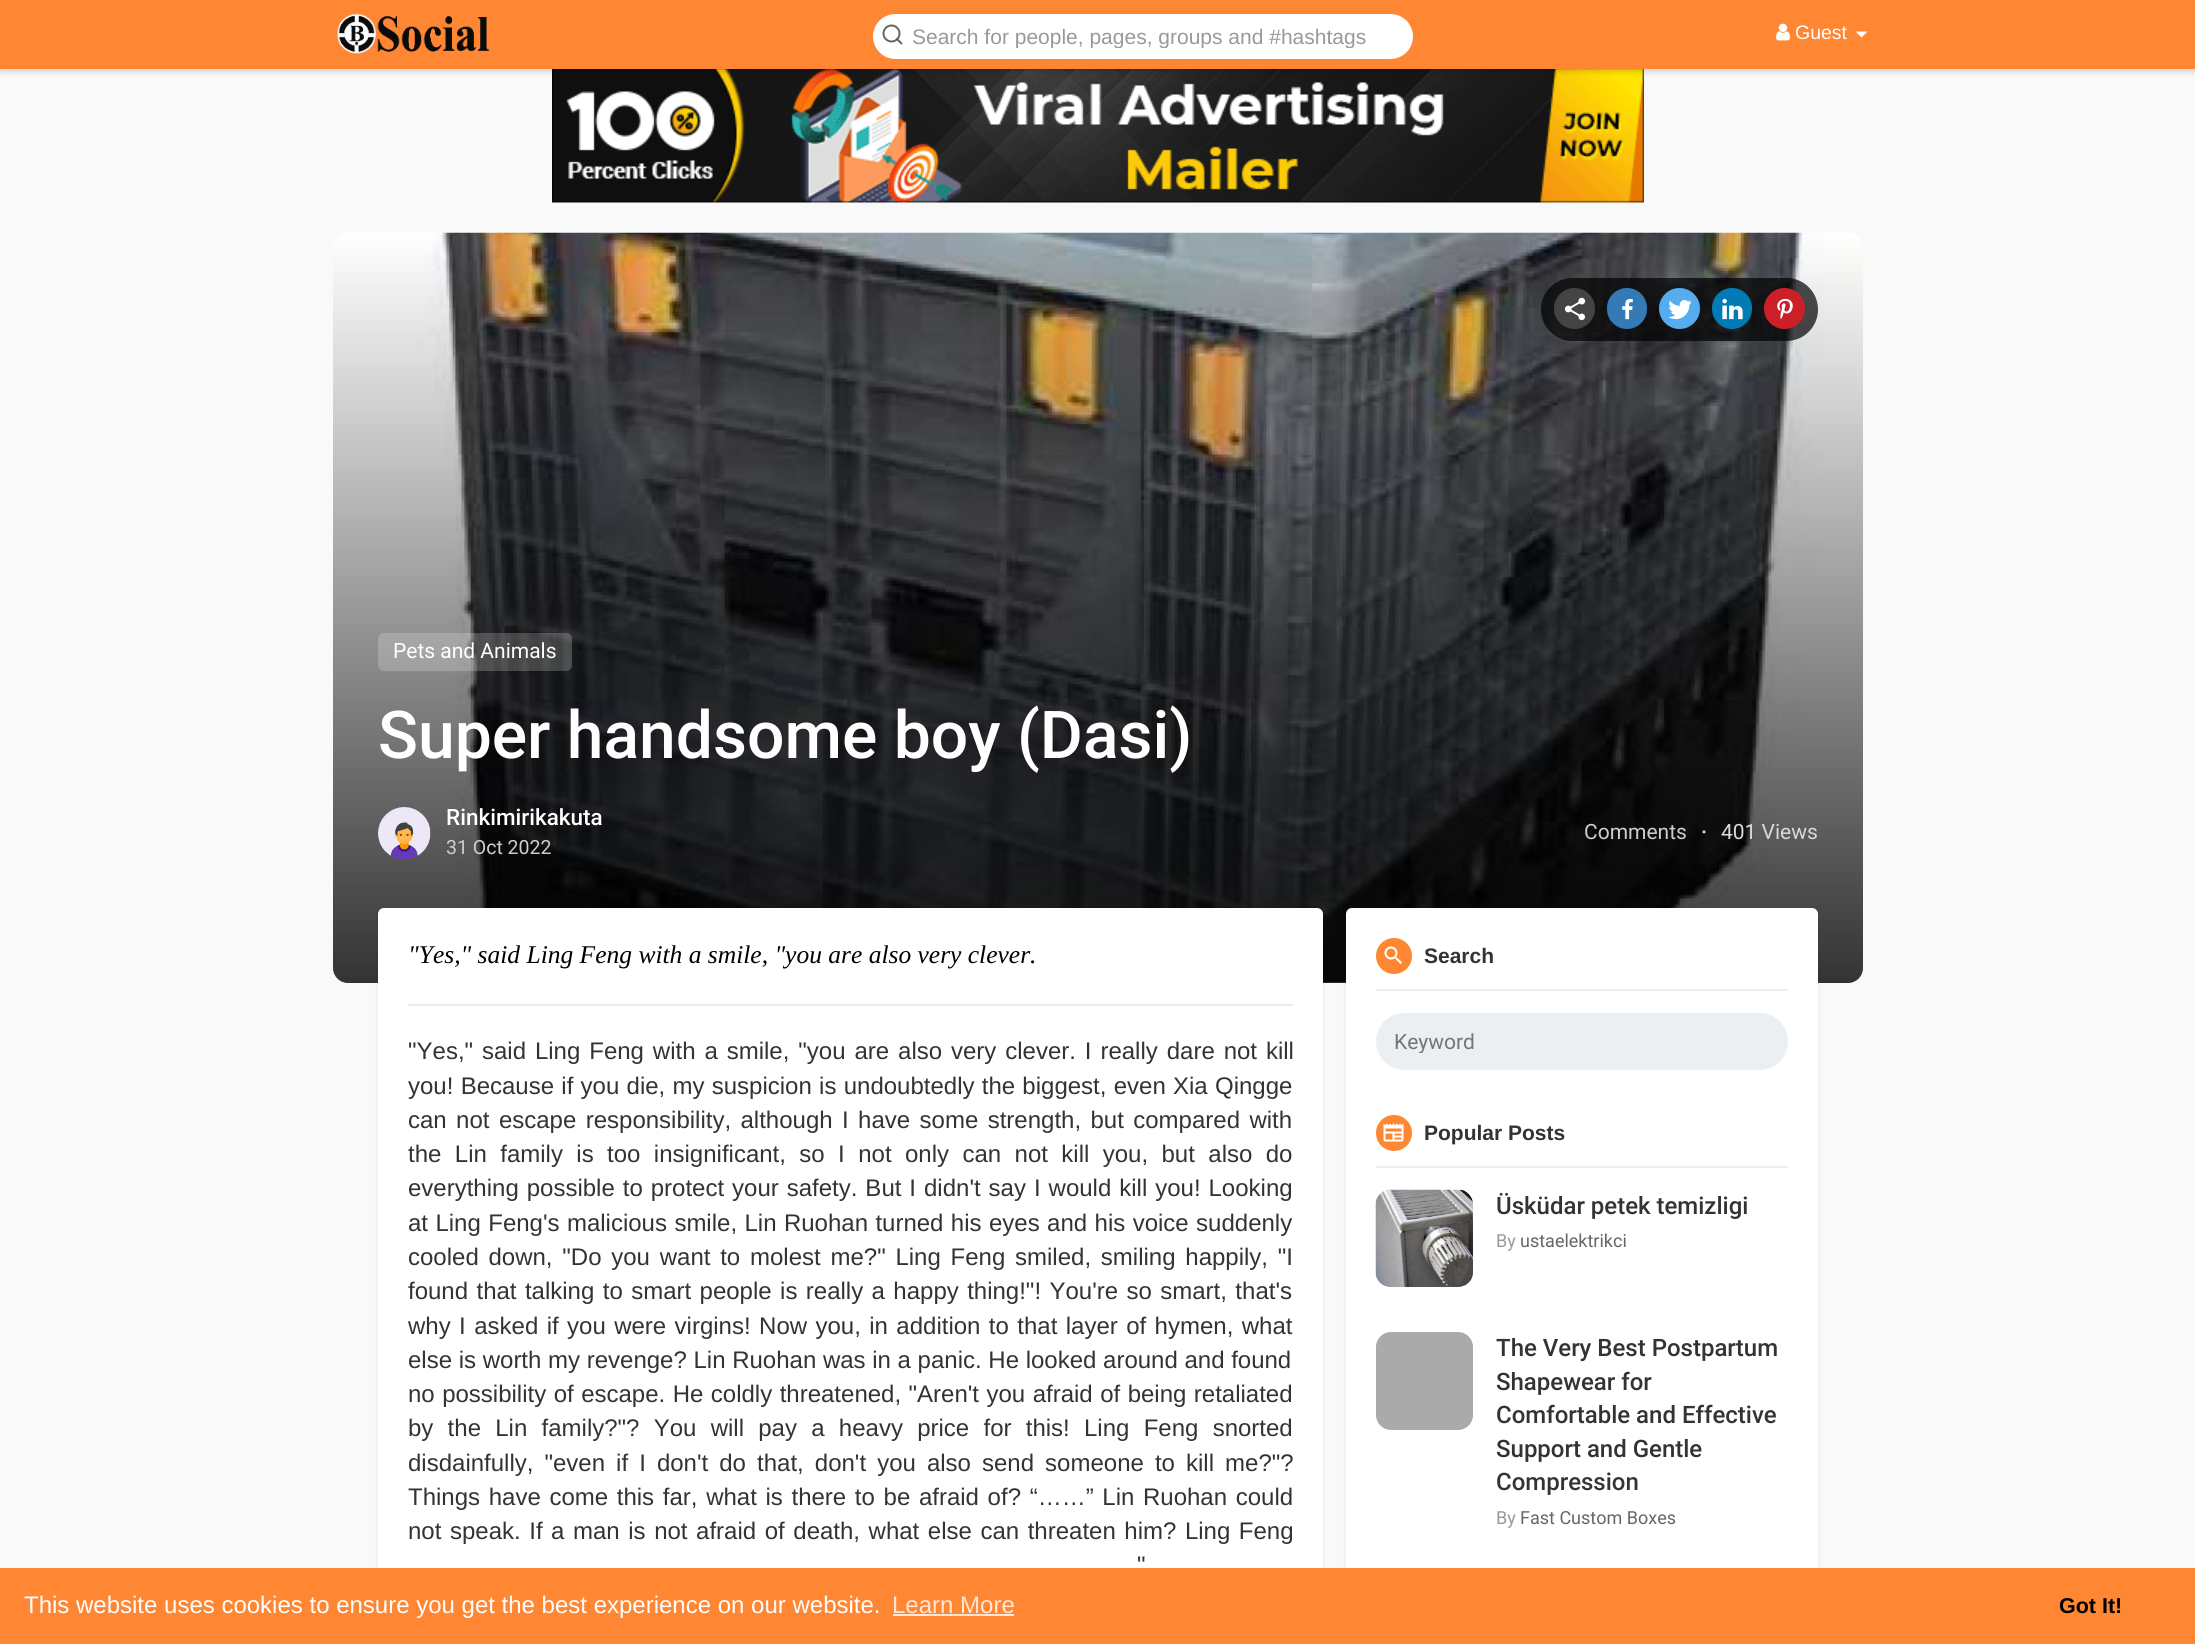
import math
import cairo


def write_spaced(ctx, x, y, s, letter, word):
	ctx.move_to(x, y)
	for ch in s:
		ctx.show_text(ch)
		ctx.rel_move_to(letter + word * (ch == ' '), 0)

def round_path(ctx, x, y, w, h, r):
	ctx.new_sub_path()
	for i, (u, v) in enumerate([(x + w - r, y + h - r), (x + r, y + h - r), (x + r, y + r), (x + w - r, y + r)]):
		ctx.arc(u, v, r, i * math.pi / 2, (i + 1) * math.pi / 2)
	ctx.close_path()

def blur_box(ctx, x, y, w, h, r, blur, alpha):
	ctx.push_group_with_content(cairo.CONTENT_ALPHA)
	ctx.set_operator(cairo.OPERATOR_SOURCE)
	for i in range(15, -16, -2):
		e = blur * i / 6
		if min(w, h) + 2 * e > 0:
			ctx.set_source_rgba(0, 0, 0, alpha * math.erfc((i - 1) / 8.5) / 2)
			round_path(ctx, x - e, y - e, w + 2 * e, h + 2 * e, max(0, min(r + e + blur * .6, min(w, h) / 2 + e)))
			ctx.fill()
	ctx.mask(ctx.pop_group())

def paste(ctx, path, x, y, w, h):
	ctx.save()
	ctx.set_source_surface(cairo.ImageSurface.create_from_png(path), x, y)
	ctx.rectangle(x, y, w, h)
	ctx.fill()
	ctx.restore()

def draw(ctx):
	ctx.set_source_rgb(0.976, 0.976, 0.976)
	ctx.paint()
	paste(ctx, 'media/3.png', 552, 69, 1092, 134)
	ctx.set_source_rgb(0, 0, 0)
	blur_box(ctx, 0, 3, 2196, 69, 0, 3, 0.15)
	ctx.set_source_rgb(1, 0.525, 0.2)
	ctx.rectangle(0, 0, 2195, 69)
	ctx.fill()
	paste(ctx, 'media/1.png', 337, 13, 153, 41)
	ctx.set_source_rgb(1, 1, 1)
	round_path(ctx, 873, 14, 540, 45, 22.5)
	ctx.fill()
	ctx.arc(891.5, 33.5, 8, 0, 2 * math.pi)
	ctx.set_source_rgb(0.4, 0.4, 0.4)
	ctx.stroke()
	ctx.new_path()
	ctx.move_to(901.5, 43.5)
	ctx.line_to(897, 39)
	ctx.set_line_cap(cairo.LINE_CAP_ROUND)
	ctx.set_line_join(cairo.LINE_JOIN_ROUND)
	ctx.stroke()
	ctx.save()
	ctx.rectangle(912, 24, 482, 24)
	ctx.clip()
	ctx.select_font_face('Liberation Sans')
	ctx.set_font_size(21)
	ctx.set_source_rgb(0.6, 0.6, 0.6)
	ctx.move_to(912, 44)
	ctx.show_text('Search for people, pages, groups and #hashtags')
	ctx.restore()
	paste(ctx, 'media/2.png', 1776, 23, 14, 18)
	ctx.select_font_face('Liberation Sans')
	ctx.set_font_size(19.5)
	ctx.set_source_rgb(1, 1, 1)
	ctx.move_to(1795, 39)
	ctx.show_text('Guest')
	ctx.new_path()
	ctx.move_to(1855.5, 31.5)
	ctx.line_to(1867.5, 31.5)
	ctx.line_to(1861.5, 37.5)
	ctx.close_path()
	ctx.fill()
	paste(ctx, 'media/4.png', 333, 232, 1530, 751)
	gradient = cairo.LinearGradient(1098, 232, 1098, 983)
	gradient.add_color_stop_rgba(0, 0, 0, 0, 0)
	gradient.add_color_stop_rgba(1, 0, 0, 0, 0.8)
	ctx.set_source(gradient)
	round_path(ctx, 333, 233, 1530, 750, 15)
	ctx.fill()
	ctx.set_source_rgba(0, 0, 0, 0.7)
	round_path(ctx, 1541, 278, 277, 63, 31.5)
	ctx.fill()
	ctx.set_source_rgb(0.267, 0.267, 0.267)
	ctx.arc(1574.5, 308.5, 20.5, 0, 2 * math.pi)
	ctx.fill()
	paste(ctx, 'media/5.png', 1564, 297, 22, 24)
	ctx.set_source_rgb(0.2, 0.478, 0.718)
	round_path(ctx, 1607, 288, 40, 41, 20)
	ctx.fill()
	paste(ctx, 'media/6.png', 1622, 298, 11, 22)
	ctx.set_source_rgb(0.333, 0.675, 0.933)
	ctx.arc(1679.5, 308.5, 20.5, 0, 2 * math.pi)
	ctx.fill()
	paste(ctx, 'media/7.png', 1668, 300, 24, 20)
	ctx.set_source_rgb(0, 0.482, 0.714)
	round_path(ctx, 1712, 288, 40, 41, 20)
	ctx.fill()
	paste(ctx, 'media/8.png', 1722, 298, 21, 22)
	ctx.set_source_rgb(0.796, 0.125, 0.153)
	ctx.arc(1784.5, 308.5, 20.5, 0, 2 * math.pi)
	ctx.fill()
	paste(ctx, 'media/9.png', 1777, 298, 16, 22)
	ctx.set_source_rgba(1, 1, 1, 0.2)
	round_path(ctx, 378, 633, 194, 38, 6)
	ctx.fill()
	ctx.select_font_face('Roboto')
	ctx.set_font_size(21)
	ctx.set_source_rgb(1, 1, 1)
	ctx.move_to(393, 658)
	ctx.show_text('Pets and Animals')
	ctx.select_font_face('Roboto Medium')
	ctx.set_font_size(66)
	ctx.move_to(378, 758)
	ctx.show_text('Super handsome boy (Dasi)')
	paste(ctx, 'media/10.png', 378, 807, 53, 53)
	ctx.set_font_size(22.5)
	ctx.move_to(446, 825)
	ctx.show_text('Rinkimirikakuta')
	ctx.select_font_face('Roboto')
	ctx.set_font_size(19.5)
	ctx.set_source_rgb(0.808, 0.808, 0.808)
	ctx.move_to(446, 854)
	ctx.show_text('31 Oct 2022')
	ctx.set_font_size(21)
	ctx.move_to(1584, 839)
	ctx.show_text('Comments')
	ctx.select_font_face('Roboto', cairo.FONT_SLANT_NORMAL, cairo.FONT_WEIGHT_BOLD)
	ctx.set_font_size(19.5)
	ctx.move_to(1701, 839)
	ctx.show_text('·')
	ctx.select_font_face('Roboto')
	ctx.set_font_size(21)
	ctx.set_source_rgb(0.851, 0.851, 0.851)
	ctx.move_to(1721, 839)
	ctx.show_text('401 Views')
	ctx.set_source_rgb(0, 0, 0)
	blur_box(ctx, 378, 909, 945, 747, 6, 2, 0.1)
	ctx.set_source_rgb(1, 1, 1)
	round_path(ctx, 378, 908, 945, 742, 6)
	ctx.fill()
	ctx.set_source_rgb(0.918, 0.918, 0.918)
	ctx.rectangle(408, 1004, 885, 2)
	ctx.fill()
	ctx.select_font_face('Liberation Serif', cairo.FONT_SLANT_ITALIC)
	ctx.set_font_size(25.5)
	ctx.set_source_rgb(0, 0, 0)
	ctx.move_to(408, 963)
	ctx.show_text('"Yes," said Ling Feng with a smile, "you are also very clever.')
	ctx.select_font_face('Liberation Sans')
	ctx.set_font_size(24)
	ctx.set_source_rgb(0.2, 0.2, 0.2)
	write_spaced(ctx, 408, 1059, '"Yes," said Ling Feng with a smile, "you are also very clever. I really dare not kill', 0, 2.25)
	write_spaced(ctx, 408, 1094, 'you! Because if you die, my suspicion is undoubtedly the biggest, even Xia Qingge', 0, 0.6)
	write_spaced(ctx, 408, 1128, 'can not escape responsibility, although I have some strength, but compared with', 0, 2.75)
	write_spaced(ctx, 408, 1162, 'the Lin family is too insignificant, so I not only can not kill you, but also do', 0, 6.75)
	write_spaced(ctx, 408, 1196, 'everything possible to protect your safety. But I didn\'t say I would kill you! Looking', 0, 1.3)
	write_spaced(ctx, 408, 1231, 'at Ling Feng\'s malicious smile, Lin Ruohan turned his eyes and his voice suddenly', 0, 0.75)
	write_spaced(ctx, 408, 1265, 'cooled down, "Do you want to molest me?" Ling Feng smiled, smiling happily, "I', 0, 3.1)
	write_spaced(ctx, 408, 1299, 'found that talking to smart people is really a happy thing!"! You\'re so smart, that\'s', 0, 1.75)
	write_spaced(ctx, 408, 1334, 'why I asked if you were virgins! Now you, in addition to that layer of hymen, what', 0, 1.75)
	ctx.move_to(408, 1368)
	ctx.show_text('else is worth my revenge? Lin Ruohan was in a panic. He looked around and found')
	write_spaced(ctx, 408, 1402, 'no possibility of escape. He coldly threatened, "Aren\'t you afraid of being retaliated', 0, 0.8)
	write_spaced(ctx, 408, 1436, 'by the Lin family?"? You will pay a heavy price for this! Ling Feng snorted', 0, 7.6)
	write_spaced(ctx, 408, 1471, 'disdainfully, "even if I don\'t do that, don\'t you also send someone to kill me?"?', 0, 4.4)
	write_spaced(ctx, 408, 1505, 'Things have come this far, what is there to be afraid of? “……” Lin Ruohan could', 0, 2)
	write_spaced(ctx, 408, 1539, 'not speak. If a man is not afraid of death, what else can threaten him? Ling Feng', 0, 1.9)
	write_spaced(ctx, 1137, 1573, '"', 0, 4)
	ctx.set_source_rgb(0, 0, 0)
	blur_box(ctx, 1346, 909, 472, 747, 6, 2, 0.1)
	ctx.set_source_rgb(1, 1, 1)
	round_path(ctx, 1346, 908, 472, 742, 6)
	ctx.fill()
	ctx.set_source_rgb(0.933, 0.933, 0.933)
	ctx.rectangle(1376, 989, 412, 2)
	ctx.fill()
	ctx.set_source_rgb(1, 0.525, 0.2)
	ctx.arc(1394, 956, 18, 0, 2 * math.pi)
	ctx.fill()
	paste(ctx, 'media/11.png', 1384, 946, 18, 18)
	ctx.select_font_face('Liberation Sans', cairo.FONT_SLANT_NORMAL, cairo.FONT_WEIGHT_BOLD)
	ctx.set_font_size(21)
	ctx.set_source_rgb(0.2, 0.2, 0.2)
	ctx.move_to(1424, 963)
	ctx.show_text('Search')
	ctx.set_source_rgb(0.918, 0.937, 0.949)
	round_path(ctx, 1376, 1013, 412, 57, 28.5)
	ctx.fill()
	ctx.save()
	ctx.rectangle(1394, 1029, 376, 24)
	ctx.clip()
	ctx.select_font_face('Roboto')
	ctx.set_source_rgb(0.459, 0.459, 0.459)
	ctx.move_to(1394, 1049)
	ctx.show_text('Keyword')
	ctx.restore()
	ctx.set_source_rgb(0.933, 0.933, 0.933)
	ctx.rectangle(1376, 1166, 412, 2)
	ctx.fill()
	ctx.set_source_rgb(1, 0.525, 0.2)
	ctx.arc(1394, 1133, 18, 0, 2 * math.pi)
	ctx.fill()
	paste(ctx, 'media/12.png', 1383, 1123, 21, 19)
	ctx.set_source_rgb(0.2, 0.2, 0.2)
	ctx.move_to(1424, 1140)
	ctx.show_text('Popular Posts')
	ctx.set_source_rgb(0.667, 0.667, 0.667)
	round_path(ctx, 1376, 1190, 97, 97, 15)
	ctx.fill()
	paste(ctx, 'media/13.png', 1375, 1189, 98, 98)
	ctx.select_font_face('Roboto Medium')
	ctx.set_font_size(24)
	ctx.set_source_rgb(0.2, 0.2, 0.2)
	ctx.move_to(1496, 1214)
	ctx.show_text('Üsküdar petek temizligi')
	ctx.select_font_face('Roboto')
	ctx.set_font_size(18)
	ctx.set_source_rgb(0.6, 0.6, 0.6)
	ctx.move_to(1496, 1247)
	ctx.show_text('By')
	ctx.set_source_rgb(0.4, 0.4, 0.4)
	ctx.move_to(1520, 1247)
	ctx.show_text('ustaelektrikci')
	ctx.set_source_rgb(0.667, 0.667, 0.667)
	round_path(ctx, 1376, 1332, 97, 98, 15)
	ctx.fill()
	ctx.select_font_face('Roboto Medium')
	ctx.set_font_size(24)
	ctx.set_source_rgb(0.2, 0.2, 0.2)
	for x, y, s in [
		(1496, 1356, 'The Very Best Postpartum'),
		(1496, 1390, 'Shapewear for'),
		(1496, 1423, 'Comfortable and Effective'),
		(1496, 1457, 'Support and Gentle'),
		(1496, 1490, 'Compression'),
	]:
		ctx.move_to(x, y)
		ctx.show_text(s)
	ctx.select_font_face('Roboto')
	ctx.set_font_size(18)
	ctx.set_source_rgb(0.6, 0.6, 0.6)
	ctx.move_to(1496, 1524)
	ctx.show_text('By')
	ctx.set_source_rgb(0.4, 0.4, 0.4)
	ctx.move_to(1520, 1524)
	ctx.show_text('Fast Custom Boxes')
	ctx.set_source_rgb(1, 0.525, 0.2)
	ctx.rectangle(0, 1568, 2195, 76)
	ctx.fill()
	ctx.select_font_face('Liberation Sans')
	ctx.set_font_size(24)
	ctx.set_source_rgb(1, 1, 1)
	ctx.move_to(24, 1613)
	ctx.show_text('This website uses cookies to ensure you get the best experience on our website.')
	ctx.set_source_rgb(1, 0.906, 0.839)
	ctx.move_to(892, 1613)
	ctx.show_text('Learn More')
	ctx.rectangle(893, 1614, 121, 2)
	ctx.fill()
	ctx.select_font_face('Liberation Sans', cairo.FONT_SLANT_NORMAL, cairo.FONT_WEIGHT_BOLD)
	ctx.set_font_size(21.5)
	ctx.set_source_rgb(0, 0, 0)
	ctx.move_to(2059, 1613)
	ctx.show_text('Got It!')


surface = cairo.ImageSurface(cairo.FORMAT_RGB24, 2195, 1644)
ctx = cairo.Context(surface)
options = cairo.FontOptions()
options.set_hint_metrics(cairo.HINT_METRICS_OFF)
options.set_hint_style(cairo.HINT_STYLE_NONE)
ctx.set_font_options(options)
ctx.set_miter_limit(4)
draw(ctx)
surface.write_to_png('image.png')
